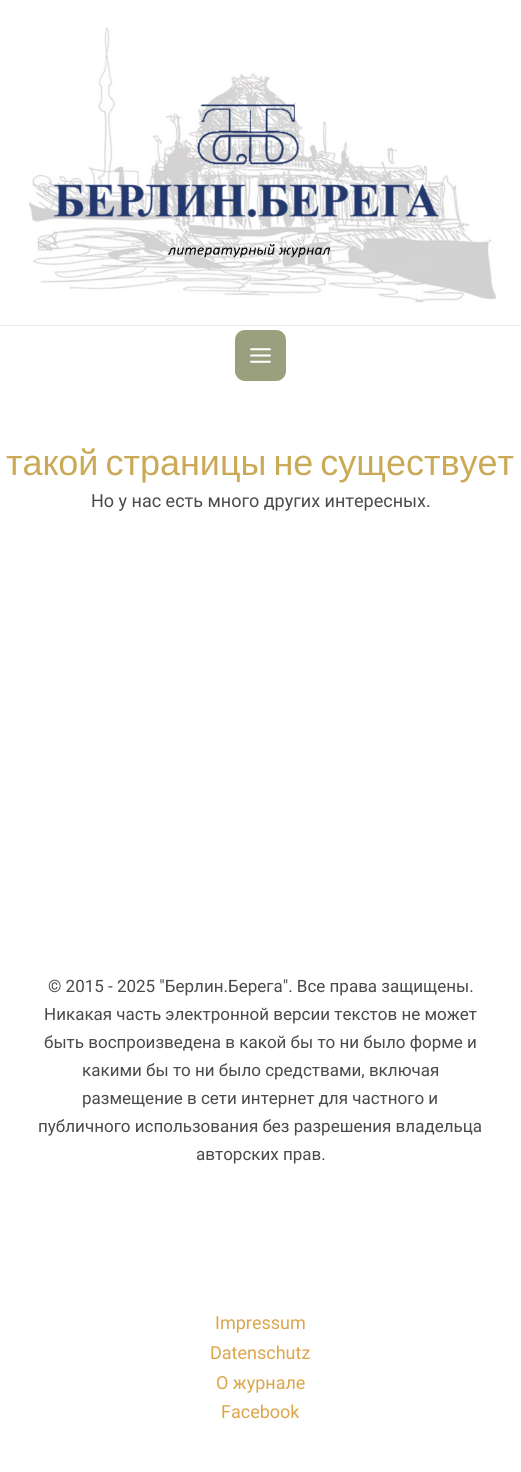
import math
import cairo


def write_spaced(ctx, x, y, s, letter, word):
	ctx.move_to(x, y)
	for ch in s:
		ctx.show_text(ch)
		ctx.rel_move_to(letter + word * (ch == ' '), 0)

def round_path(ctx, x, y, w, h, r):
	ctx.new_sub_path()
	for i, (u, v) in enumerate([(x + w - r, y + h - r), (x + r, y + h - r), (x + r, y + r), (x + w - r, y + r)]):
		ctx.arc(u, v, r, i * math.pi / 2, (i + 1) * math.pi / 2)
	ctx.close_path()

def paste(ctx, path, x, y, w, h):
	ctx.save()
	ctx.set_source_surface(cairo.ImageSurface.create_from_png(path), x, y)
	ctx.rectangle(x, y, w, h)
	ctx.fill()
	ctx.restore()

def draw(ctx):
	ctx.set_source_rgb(1, 1, 1)
	ctx.paint()
	ctx.set_source_rgb(0.918, 0.918, 0.918)
	ctx.rectangle(0, 325, 521, 1)
	ctx.fill()
	paste(ctx, 'media/1.png', 29, 27, 468, 276)
	ctx.set_source_rgb(0.604, 0.627, 0.49)
	round_path(ctx, 235, 330, 51, 51, 10)
	ctx.fill()
	paste(ctx, 'media/2.png', 250, 348, 21, 15)
	ctx.select_font_face('Liberation Sans')
	ctx.set_font_size(36)
	ctx.set_source_rgb(0.796, 0.667, 0.341)
	write_spaced(ctx, 6, 475, 'такой страницы не существует', 0, -3)
	ctx.select_font_face('Roboto')
	ctx.set_font_size(18)
	ctx.set_source_rgb(0.29, 0.29, 0.29)
	ctx.move_to(91, 507)
	ctx.show_text('Но у нас есть много других интересных.')
	ctx.set_font_size(17)
	for x, y, s in [
		(48, 992, '© 2015 - 2025 "Берлин.Берега". Все права защищены.'),
		(44, 1020, 'Никакая часть электронной версии текстов не может'),
		(44, 1048, 'быть воспроизведена в какой бы то ни было форме и'),
		(82, 1076, 'какими бы то ни было средствами, включая'),
		(82, 1104, 'размещение в сети интернет для частного и'),
		(38, 1132, 'публичного использования без разрешения владельца'),
		(196, 1160, 'авторских прав.'),
	]:
		ctx.move_to(x, y)
		ctx.show_text(s)
	ctx.set_font_size(18)
	ctx.set_source_rgb(0.863, 0.647, 0.29)
	for x, y, s in [
		(215, 1329, 'Impressum'),
		(210, 1359, 'Datenschutz'),
		(216, 1389, 'О журнале'),
		(221, 1418, 'Facebook'),
	]:
		ctx.move_to(x, y)
		ctx.show_text(s)


surface = cairo.ImageSurface(cairo.FORMAT_RGB24, 521, 1472)
ctx = cairo.Context(surface)
options = cairo.FontOptions()
options.set_hint_metrics(cairo.HINT_METRICS_OFF)
options.set_hint_style(cairo.HINT_STYLE_NONE)
ctx.set_font_options(options)
ctx.set_miter_limit(4)
draw(ctx)
surface.write_to_png('image.png')
